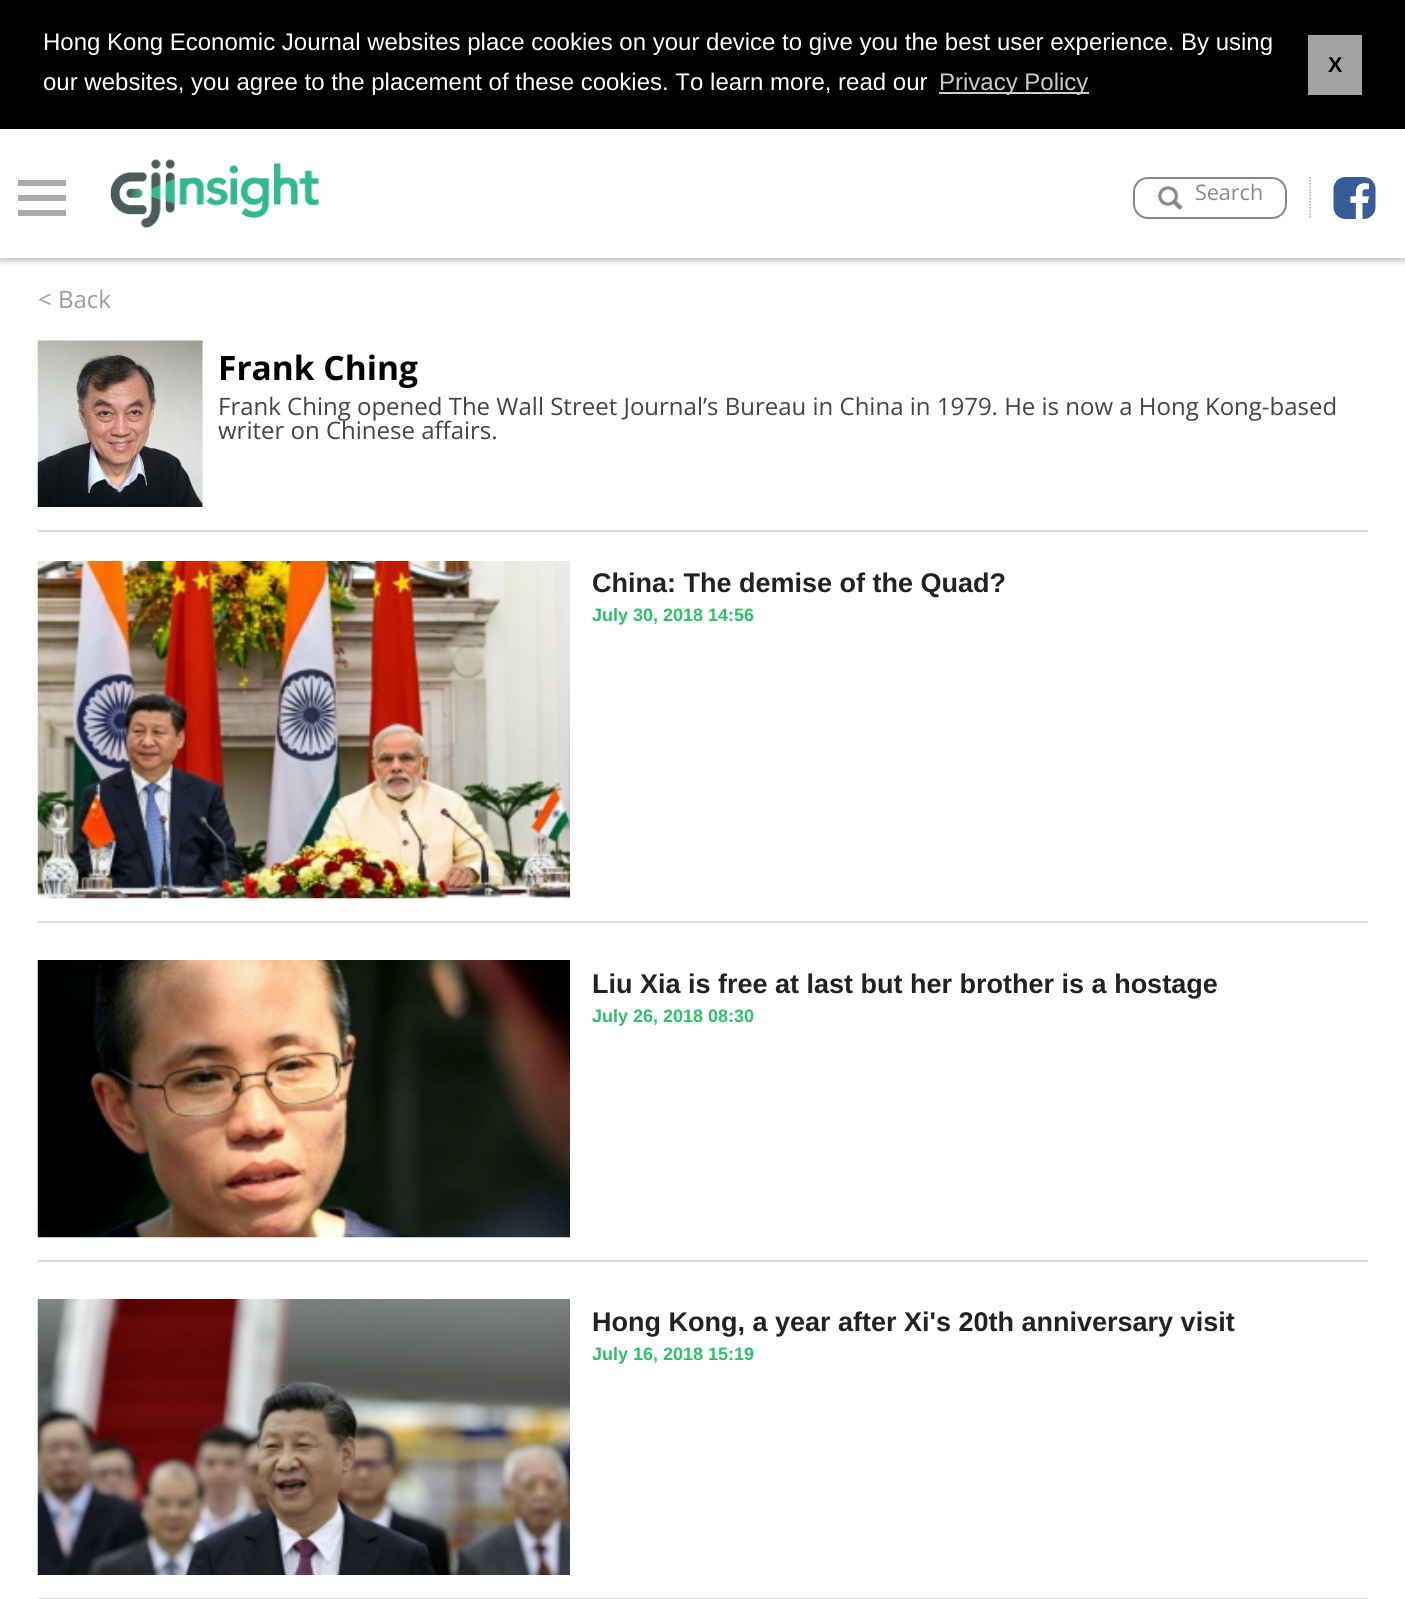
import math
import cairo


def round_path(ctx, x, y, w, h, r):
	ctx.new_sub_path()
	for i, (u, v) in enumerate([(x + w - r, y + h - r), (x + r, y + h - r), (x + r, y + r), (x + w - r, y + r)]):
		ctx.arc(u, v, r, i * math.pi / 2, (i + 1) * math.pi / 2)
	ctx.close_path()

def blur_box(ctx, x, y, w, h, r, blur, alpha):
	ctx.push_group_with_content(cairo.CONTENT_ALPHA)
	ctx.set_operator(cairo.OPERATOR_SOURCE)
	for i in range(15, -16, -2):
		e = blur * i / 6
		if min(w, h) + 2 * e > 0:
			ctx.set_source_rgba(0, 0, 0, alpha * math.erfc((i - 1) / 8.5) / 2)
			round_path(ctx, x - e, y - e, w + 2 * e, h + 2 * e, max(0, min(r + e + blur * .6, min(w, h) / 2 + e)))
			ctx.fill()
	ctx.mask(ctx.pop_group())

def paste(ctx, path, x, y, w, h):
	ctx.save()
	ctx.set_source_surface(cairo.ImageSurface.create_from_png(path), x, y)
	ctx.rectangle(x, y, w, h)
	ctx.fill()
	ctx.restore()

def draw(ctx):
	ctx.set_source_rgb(1, 1, 1)
	ctx.paint()
	ctx.set_source_rgb(0, 0, 0)
	ctx.rectangle(0, 0, 1405, 129)
	ctx.fill()
	ctx.select_font_face('Liberation Sans')
	ctx.set_font_size(24)
	ctx.set_source_rgb(1, 1, 1)
	ctx.move_to(43, 50)
	ctx.show_text('Hong Kong Economic Journal websites place cookies on your device to give you the best user experience. By using')
	ctx.move_to(43, 90)
	ctx.show_text('our websites, you agree to the placement of these cookies. To learn more, read our')
	ctx.set_source_rgb(0.8, 0.8, 0.8)
	ctx.rectangle(939, 92, 150, 2)
	ctx.fill()
	ctx.move_to(939, 90)
	ctx.show_text('Privacy Policy')
	ctx.set_source_rgb(0.639, 0.635, 0.635)
	ctx.rectangle(1308, 35, 54, 60)
	ctx.fill()
	ctx.select_font_face('Liberation Sans', cairo.FONT_SLANT_NORMAL, cairo.FONT_WEIGHT_BOLD)
	ctx.set_font_size(21.5)
	ctx.set_source_rgb(0, 0, 0)
	ctx.move_to(1328, 72)
	ctx.show_text('X')
	ctx.save()
	ctx.rectangle(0, 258, 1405, 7)
	ctx.clip()
	ctx.set_source_rgb(0, 0, 0)
	blur_box(ctx, 0, 134, 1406, 127, 0, 3, 0.25)
	ctx.restore()
	ctx.set_source_rgb(0.678, 0.667, 0.675)
	ctx.rectangle(18, 195, 48, 6)
	ctx.rectangle(18, 180, 48, 6)
	ctx.rectangle(18, 210, 48, 6)
	ctx.fill()
	paste(ctx, 'media/1.png', 110, 159, 209, 69)
	paste(ctx, 'media/2.png', 1158, 186, 25, 24)
	round_path(ctx, 1134, 178, 152, 40, 14)
	ctx.set_source_rgb(0.533, 0.533, 0.533)
	ctx.stroke()
	ctx.select_font_face('Open Sans')
	ctx.move_to(1195, 200)
	ctx.show_text('Search')
	ctx.new_path()
	ctx.move_to(1310, 177)
	ctx.line_to(1310, 219)
	ctx.set_source_rgb(0.667, 0.667, 0.667)
	ctx.set_line_width(1.5)
	ctx.set_dash([1.5, 1.5])
	ctx.stroke()
	paste(ctx, 'media/3.png', 1333, 177, 43, 42)
	ctx.set_font_size(24)
	ctx.set_source_rgb(0.612, 0.612, 0.612)
	ctx.move_to(38, 308)
	ctx.show_text('< Back')
	ctx.set_source_rgb(0.867, 0.867, 0.867)
	ctx.rectangle(38, 530, 1330, 2)
	ctx.fill()
	paste(ctx, 'media/4.png', 37, 340, 166, 167)
	ctx.select_font_face('Open Sans', cairo.FONT_SLANT_NORMAL, cairo.FONT_WEIGHT_BOLD)
	ctx.set_font_size(33.5)
	ctx.set_source_rgb(0, 0, 0)
	ctx.move_to(218, 380)
	ctx.show_text('Frank Ching')
	ctx.select_font_face('Open Sans')
	ctx.set_font_size(24)
	ctx.set_source_rgb(0.267, 0.267, 0.267)
	ctx.move_to(218, 415)
	ctx.show_text('Frank Ching opened The Wall Street Journal’s Bureau in China in 1979. He is now a Hong Kong-based')
	ctx.move_to(218, 439)
	ctx.show_text('writer on Chinese affairs.')
	ctx.set_source_rgb(0.867, 0.867, 0.867)
	ctx.rectangle(38, 921, 1330, 2)
	ctx.fill()
	paste(ctx, 'media/5.png', 37, 561, 533, 338)
	ctx.select_font_face('Liberation Sans', cairo.FONT_SLANT_NORMAL, cairo.FONT_WEIGHT_BOLD)
	ctx.set_font_size(27)
	ctx.set_source_rgb(0.133, 0.133, 0.133)
	ctx.move_to(592, 592)
	ctx.show_text('China: The demise of the Quad?')
	ctx.set_font_size(18)
	ctx.set_source_rgb(0.18, 0.749, 0.42)
	ctx.move_to(592, 621)
	ctx.show_text('July 30, 2018 14:56')
	ctx.set_source_rgb(0.867, 0.867, 0.867)
	ctx.rectangle(38, 1260, 1330, 2)
	ctx.fill()
	paste(ctx, 'media/6.png', 37, 960, 533, 278)
	ctx.set_font_size(27)
	ctx.set_source_rgb(0.133, 0.133, 0.133)
	ctx.move_to(592, 993)
	ctx.show_text('Liu Xia is free at last but her brother is a hostage')
	ctx.set_font_size(18)
	ctx.set_source_rgb(0.18, 0.749, 0.42)
	ctx.move_to(592, 1022)
	ctx.show_text('July 26, 2018 08:30')
	ctx.set_source_rgb(0.867, 0.867, 0.867)
	ctx.rectangle(38, 1598, 1330, 1)
	ctx.fill()
	paste(ctx, 'media/7.png', 37, 1299, 533, 276)
	ctx.set_font_size(27)
	ctx.set_source_rgb(0.133, 0.133, 0.133)
	ctx.move_to(592, 1331)
	ctx.show_text('Hong Kong, a year after Xi\'s 20th anniversary visit')
	ctx.set_font_size(18)
	ctx.set_source_rgb(0.18, 0.749, 0.42)
	ctx.move_to(592, 1360)
	ctx.show_text('July 16, 2018 15:19')


surface = cairo.ImageSurface(cairo.FORMAT_RGB24, 1405, 1599)
ctx = cairo.Context(surface)
options = cairo.FontOptions()
options.set_hint_metrics(cairo.HINT_METRICS_OFF)
options.set_hint_style(cairo.HINT_STYLE_NONE)
ctx.set_font_options(options)
ctx.set_miter_limit(4)
draw(ctx)
surface.write_to_png('image.png')
